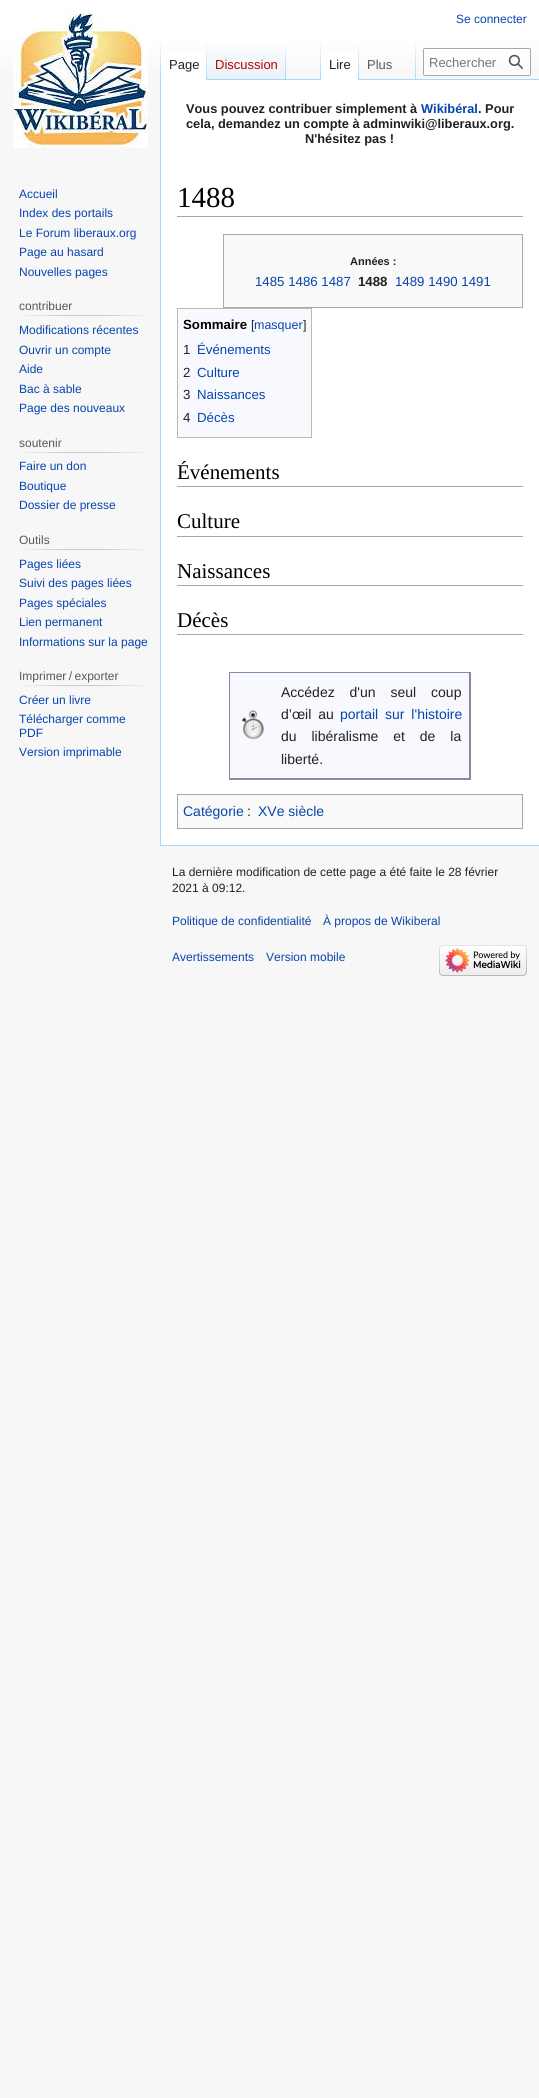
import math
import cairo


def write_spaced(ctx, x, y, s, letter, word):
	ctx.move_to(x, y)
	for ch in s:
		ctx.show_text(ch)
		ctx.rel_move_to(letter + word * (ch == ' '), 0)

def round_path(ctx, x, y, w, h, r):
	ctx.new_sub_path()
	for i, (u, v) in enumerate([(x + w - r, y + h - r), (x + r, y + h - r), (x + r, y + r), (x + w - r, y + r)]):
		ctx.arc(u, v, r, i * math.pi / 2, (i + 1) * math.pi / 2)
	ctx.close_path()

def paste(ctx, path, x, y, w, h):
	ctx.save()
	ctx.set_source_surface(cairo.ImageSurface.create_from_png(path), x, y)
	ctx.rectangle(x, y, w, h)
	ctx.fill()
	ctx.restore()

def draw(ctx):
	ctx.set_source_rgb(0.965, 0.965, 0.965)
	ctx.paint()
	gradient = cairo.LinearGradient(270, 0, 270, 80)
	gradient.add_color_stop_rgba(0.5, 1, 1, 1, 1)
	gradient.add_color_stop_rgba(1, 0.965, 0.965, 0.965, 1)
	ctx.set_source(gradient)
	ctx.rectangle(0, 0, 539, 69)
	ctx.fill()
	ctx.select_font_face('Liberation Sans')
	ctx.set_font_size(12)
	ctx.set_source_rgb(0.024, 0.271, 0.678)
	ctx.move_to(456, 23)
	ctx.show_text('Se connecter')
	ctx.set_source_rgb(0.655, 0.843, 0.976)
	ctx.rectangle(160, 845, 379, 1)
	ctx.fill()
	ctx.rectangle(160, 79, 1, 767)
	ctx.fill()
	gradient = cairo.LinearGradient(161, 40, 161, 80)
	gradient.add_color_stop_rgba(0, 0.655, 0.843, 0.976, 0)
	gradient.add_color_stop_rgba(1, 0.655, 0.843, 0.976, 1)
	ctx.set_source(gradient)
	ctx.rectangle(160, 40, 1, 40)
	ctx.fill()
	ctx.set_source_rgb(1, 1, 1)
	ctx.rectangle(161, 51, 45, 29)
	ctx.fill()
	gradient = cairo.LinearGradient(207, 40, 207, 80)
	gradient.add_color_stop_rgba(0, 1, 1, 1, 1)
	gradient.add_color_stop_rgba(1, 0.655, 0.843, 0.976, 1)
	ctx.set_source(gradient)
	ctx.rectangle(206, 40, 1, 40)
	ctx.fill()
	ctx.set_font_size(13)
	ctx.set_source_rgb(0.125, 0.129, 0.133)
	ctx.move_to(169, 69)
	ctx.show_text('Page')
	gradient = cairo.LinearGradient(247, 80, 247, 40)
	gradient.add_color_stop_rgba(0, 0.467, 0.757, 0.965, 1)
	gradient.add_color_stop_rgba(0.03, 0.91, 0.949, 0.973, 1)
	gradient.add_color_stop_rgba(1, 1, 1, 1, 1)
	ctx.set_source(gradient)
	ctx.rectangle(207, 46, 79, 34)
	ctx.fill()
	gradient = cairo.LinearGradient(286, 40, 286, 80)
	gradient.add_color_stop_rgba(0, 0.655, 0.843, 0.976, 0)
	gradient.add_color_stop_rgba(1, 0.655, 0.843, 0.976, 1)
	ctx.set_source(gradient)
	ctx.rectangle(285, 40, 1, 40)
	ctx.fill()
	ctx.set_source_rgb(0.729, 0, 0)
	ctx.move_to(215, 69)
	ctx.show_text('Discussion')
	ctx.set_source_rgb(0.655, 0.843, 0.976)
	ctx.rectangle(286, 79, 253, 1)
	ctx.fill()
	gradient = cairo.LinearGradient(321, 40, 321, 80)
	gradient.add_color_stop_rgba(0, 0.655, 0.843, 0.976, 0)
	gradient.add_color_stop_rgba(1, 0.655, 0.843, 0.976, 1)
	ctx.set_source(gradient)
	ctx.rectangle(320, 40, 1, 40)
	ctx.fill()
	ctx.set_source_rgb(1, 1, 1)
	ctx.rectangle(321, 51, 37, 29)
	ctx.fill()
	gradient = cairo.LinearGradient(359, 40, 359, 80)
	gradient.add_color_stop_rgba(0, 1, 1, 1, 1)
	gradient.add_color_stop_rgba(1, 0.655, 0.843, 0.976, 1)
	ctx.set_source(gradient)
	ctx.rectangle(358, 40, 1, 40)
	ctx.fill()
	ctx.set_source_rgb(0.125, 0.129, 0.133)
	ctx.move_to(329, 69)
	ctx.show_text('Lire')
	gradient = cairo.LinearGradient(416, 40, 416, 80)
	gradient.add_color_stop_rgba(0, 0.655, 0.843, 0.976, 0)
	gradient.add_color_stop_rgba(1, 0.655, 0.843, 0.976, 1)
	ctx.set_source(gradient)
	ctx.rectangle(415, 40, 1, 40)
	ctx.fill()
	ctx.set_source_rgb(0.329, 0.349, 0.365)
	ctx.move_to(367, 69)
	ctx.show_text('Plus')
	ctx.set_source_rgba(1, 1, 1, 0.5)
	round_path(ctx, 423.5, 48.5, 107, 27, 1.5)
	ctx.fill_preserve()
	ctx.set_source_rgb(0.635, 0.663, 0.694)
	ctx.set_line_width(1)
	ctx.stroke()
	ctx.set_source_rgb(0.447, 0.467, 0.49)
	ctx.move_to(429, 67)
	ctx.show_text('Rechercher')
	paste(ctx, 'media/1.png', 508, 54, 15, 15)
	paste(ctx, 'media/2.png', 13, 13, 135, 135)
	ctx.set_font_size(12)
	ctx.set_source_rgb(0.024, 0.271, 0.678)
	for x, y, s in [
		(19, 198, 'Accueil'),
		(19, 217, 'Index des portails'),
		(19, 237, 'Le Forum liberaux.org'),
		(19, 256, 'Page au hasard'),
		(19, 276, 'Nouvelles pages'),
	]:
		ctx.move_to(x, y)
		ctx.show_text(s)
	gradient = cairo.LinearGradient(19, 316, 150, 316)
	gradient.add_color_stop_rgba(0, 0.965, 0.965, 0.965, 1)
	gradient.add_color_stop_rgba(0.33, 0.784, 0.8, 0.82, 1)
	gradient.add_color_stop_rgba(0.66, 0.784, 0.8, 0.82, 1)
	gradient.add_color_stop_rgba(1, 0.965, 0.965, 0.965, 1)
	ctx.set_source(gradient)
	ctx.rectangle(19, 315, 131, 1)
	ctx.fill()
	ctx.set_source_rgb(0.329, 0.349, 0.365)
	ctx.move_to(19, 310)
	ctx.show_text('contribuer')
	ctx.set_source_rgb(0.024, 0.271, 0.678)
	for x, y, s in [
		(19, 334, 'Modifications récentes'),
		(19, 354, 'Ouvrir un compte'),
		(19, 373, 'Aide'),
		(19, 393, 'Bac à sable'),
		(19, 412, 'Page des nouveaux'),
	]:
		ctx.move_to(x, y)
		ctx.show_text(s)
	gradient = cairo.LinearGradient(19, 453, 150, 453)
	gradient.add_color_stop_rgba(0, 0.965, 0.965, 0.965, 1)
	gradient.add_color_stop_rgba(0.33, 0.784, 0.8, 0.82, 1)
	gradient.add_color_stop_rgba(0.66, 0.784, 0.8, 0.82, 1)
	gradient.add_color_stop_rgba(1, 0.965, 0.965, 0.965, 1)
	ctx.set_source(gradient)
	ctx.rectangle(19, 452, 131, 1)
	ctx.fill()
	ctx.set_source_rgb(0.329, 0.349, 0.365)
	ctx.move_to(19, 447)
	ctx.show_text('soutenir')
	ctx.set_source_rgb(0.024, 0.271, 0.678)
	for x, y, s in [
		(19, 470, 'Faire un don'),
		(19, 490, 'Boutique'),
		(19, 509, 'Dossier de presse'),
	]:
		ctx.move_to(x, y)
		ctx.show_text(s)
	gradient = cairo.LinearGradient(19, 550, 150, 550)
	gradient.add_color_stop_rgba(0, 0.965, 0.965, 0.965, 1)
	gradient.add_color_stop_rgba(0.33, 0.784, 0.8, 0.82, 1)
	gradient.add_color_stop_rgba(0.66, 0.784, 0.8, 0.82, 1)
	gradient.add_color_stop_rgba(1, 0.965, 0.965, 0.965, 1)
	ctx.set_source(gradient)
	ctx.rectangle(19, 549, 131, 1)
	ctx.fill()
	ctx.set_source_rgb(0.329, 0.349, 0.365)
	ctx.move_to(19, 544)
	ctx.show_text('Outils')
	ctx.set_source_rgb(0.024, 0.271, 0.678)
	for x, y, s in [
		(19, 568, 'Pages liées'),
		(19, 587, 'Suivi des pages liées'),
		(19, 607, 'Pages spéciales'),
		(19, 626, 'Lien permanent'),
		(19, 646, 'Informations sur la page'),
	]:
		ctx.move_to(x, y)
		ctx.show_text(s)
	gradient = cairo.LinearGradient(19, 686, 150, 686)
	gradient.add_color_stop_rgba(0, 0.965, 0.965, 0.965, 1)
	gradient.add_color_stop_rgba(0.33, 0.784, 0.8, 0.82, 1)
	gradient.add_color_stop_rgba(0.66, 0.784, 0.8, 0.82, 1)
	gradient.add_color_stop_rgba(1, 0.965, 0.965, 0.965, 1)
	ctx.set_source(gradient)
	ctx.rectangle(19, 685, 131, 1)
	ctx.fill()
	ctx.set_source_rgb(0.329, 0.349, 0.365)
	ctx.move_to(19, 680)
	ctx.show_text('Imprimer / exporter')
	ctx.set_source_rgb(0.024, 0.271, 0.678)
	for x, y, s in [
		(19, 704, 'Créer un livre'),
		(19, 723, 'Télécharger comme'),
		(19, 737, 'PDF'),
		(19, 756, 'Version imprimable'),
	]:
		ctx.move_to(x, y)
		ctx.show_text(s)
	ctx.set_source_rgb(1, 1, 1)
	ctx.rectangle(161, 80, 378, 765)
	ctx.fill()
	ctx.select_font_face('Liberation Sans', cairo.FONT_SLANT_NORMAL, cairo.FONT_WEIGHT_BOLD)
	ctx.set_font_size(12.8)
	ctx.set_source_rgb(0.125, 0.129, 0.133)
	ctx.move_to(186, 113)
	ctx.show_text('Vous pouvez contribuer simplement à')
	ctx.set_source_rgb(0.024, 0.271, 0.678)
	ctx.move_to(421, 113)
	ctx.show_text('Wikibéral')
	ctx.set_source_rgb(0.125, 0.129, 0.133)
	for x, y, s in [
		(478, 113, '. Pour'),
		(186, 128, 'cela, demandez un compte à adminwiki@liberaux.org.'),
		(305, 143, 'N\'hésitez pas !'),
	]:
		ctx.move_to(x, y)
		ctx.show_text(s)
	ctx.set_source_rgb(0.635, 0.663, 0.694)
	ctx.rectangle(177, 216, 346, 1)
	ctx.fill()
	ctx.select_font_face('Liberation Serif')
	ctx.set_font_size(29)
	ctx.set_source_rgb(0, 0, 0)
	ctx.move_to(177, 207)
	ctx.show_text('1488')
	ctx.set_source_rgb(0.976, 0.976, 0.976)
	ctx.rectangle(223.5, 234.5, 299, 73)
	ctx.fill_preserve()
	ctx.set_source_rgb(0.667, 0.667, 0.667)
	ctx.stroke()
	ctx.select_font_face('Liberation Sans', cairo.FONT_SLANT_NORMAL, cairo.FONT_WEIGHT_BOLD)
	ctx.set_font_size(11)
	ctx.set_source_rgb(0.125, 0.129, 0.133)
	ctx.move_to(350, 265)
	ctx.show_text('Années :')
	ctx.select_font_face('Liberation Sans')
	ctx.set_font_size(13.25)
	ctx.set_source_rgb(0.024, 0.271, 0.678)
	ctx.move_to(255, 286)
	ctx.show_text('1485 1486 1487')
	ctx.select_font_face('Liberation Sans', cairo.FONT_SLANT_NORMAL, cairo.FONT_WEIGHT_BOLD)
	ctx.set_source_rgb(0.125, 0.129, 0.133)
	ctx.move_to(358, 286)
	ctx.show_text('1488')
	ctx.select_font_face('Liberation Sans')
	ctx.set_source_rgb(0.024, 0.271, 0.678)
	ctx.move_to(395, 286)
	ctx.show_text('1489 1490 1491')
	ctx.set_source_rgb(0.969, 0.973, 1)
	ctx.rectangle(177.5, 308.5, 134, 129)
	ctx.fill_preserve()
	ctx.set_source_rgb(0.733, 0.733, 0.667)
	ctx.stroke()
	ctx.select_font_face('Liberation Sans', cairo.FONT_SLANT_NORMAL, cairo.FONT_WEIGHT_BOLD)
	ctx.set_source_rgb(0, 0, 0)
	ctx.move_to(183, 329)
	ctx.show_text('Sommaire')
	ctx.select_font_face('Liberation Sans')
	ctx.set_font_size(12.5)
	ctx.set_source_rgb(0.125, 0.129, 0.133)
	ctx.move_to(251, 329)
	ctx.show_text('[')
	ctx.set_source_rgb(0.024, 0.271, 0.678)
	ctx.move_to(254, 329)
	ctx.show_text('masquer')
	ctx.set_source_rgb(0.125, 0.129, 0.133)
	ctx.move_to(303, 329)
	ctx.show_text(']')
	ctx.set_font_size(13.25)
	ctx.move_to(183, 354)
	ctx.show_text('1')
	ctx.set_source_rgb(0.024, 0.271, 0.678)
	ctx.move_to(197, 354)
	ctx.show_text('Événements')
	ctx.set_source_rgb(0.125, 0.129, 0.133)
	ctx.move_to(183, 377)
	ctx.show_text('2')
	ctx.set_source_rgb(0.024, 0.271, 0.678)
	ctx.move_to(197, 377)
	ctx.show_text('Culture')
	ctx.set_source_rgb(0.125, 0.129, 0.133)
	ctx.move_to(183, 399)
	ctx.show_text('3')
	ctx.set_source_rgb(0.024, 0.271, 0.678)
	ctx.move_to(197, 399)
	ctx.show_text('Naissances')
	ctx.set_source_rgb(0.125, 0.129, 0.133)
	ctx.move_to(183, 422)
	ctx.show_text('4')
	ctx.set_source_rgb(0.024, 0.271, 0.678)
	ctx.move_to(197, 422)
	ctx.show_text('Décès')
	ctx.set_source_rgb(0.635, 0.663, 0.694)
	ctx.rectangle(177, 486, 346, 1)
	ctx.fill()
	ctx.select_font_face('Liberation Serif')
	ctx.set_font_size(21)
	ctx.set_source_rgb(0, 0, 0)
	ctx.move_to(177, 479)
	ctx.show_text('Événements')
	ctx.set_source_rgb(0.635, 0.663, 0.694)
	ctx.rectangle(177, 536, 346, 1)
	ctx.fill()
	ctx.set_source_rgb(0, 0, 0)
	ctx.move_to(177, 528)
	ctx.show_text('Culture')
	ctx.set_source_rgb(0.635, 0.663, 0.694)
	ctx.rectangle(177, 585, 346, 1)
	ctx.fill()
	ctx.set_source_rgb(0, 0, 0)
	ctx.move_to(177, 578)
	ctx.show_text('Naissances')
	ctx.set_source_rgb(0.635, 0.663, 0.694)
	ctx.rectangle(177, 634, 346, 1)
	ctx.fill()
	ctx.set_source_rgb(0, 0, 0)
	ctx.move_to(177, 627)
	ctx.show_text('Décès')
	ctx.set_source_rgb(0.969, 0.973, 1)
	ctx.rectangle(230, 673, 239, 105)
	ctx.fill()
	ctx.set_source_rgb(0.533, 0.533, 0.667)
	ctx.rectangle(229, 672, 242, 1)
	ctx.rectangle(469, 672, 2, 108)
	ctx.rectangle(229, 778, 242, 2)
	ctx.rectangle(229, 672, 1, 108)
	ctx.fill()
	paste(ctx, 'media/3.png', 241, 710, 23, 30)
	ctx.select_font_face('Liberation Sans')
	ctx.set_font_size(14)
	ctx.set_source_rgb(0.125, 0.129, 0.133)
	write_spaced(ctx, 281, 697, 'Accédez d\'un seul coup', 0, 11)
	write_spaced(ctx, 281, 719, 'd’œil au', 0, 3)
	ctx.set_source_rgb(0.024, 0.271, 0.678)
	write_spaced(ctx, 340, 719, 'portail sur l\'histoire', 0, 3)
	ctx.set_source_rgb(0.125, 0.129, 0.133)
	write_spaced(ctx, 281, 741, 'du libéralisme et de la', 0, 11)
	ctx.move_to(281, 764)
	ctx.show_text('liberté.')
	ctx.set_source_rgb(0.973, 0.976, 0.98)
	ctx.rectangle(177.5, 794.5, 345, 34)
	ctx.fill_preserve()
	ctx.set_source_rgb(0.635, 0.663, 0.694)
	ctx.stroke()
	ctx.set_source_rgb(0.024, 0.271, 0.678)
	ctx.move_to(183, 816)
	ctx.show_text('Catégorie')
	ctx.set_source_rgb(0.125, 0.129, 0.133)
	ctx.move_to(247, 816)
	ctx.show_text(':')
	ctx.set_source_rgb(0.024, 0.271, 0.678)
	ctx.move_to(258, 816)
	ctx.show_text('XVe siècle')
	ctx.set_font_size(12)
	ctx.set_source_rgb(0.125, 0.129, 0.133)
	ctx.move_to(172, 876)
	ctx.show_text('La dernière modification de cette page a été faite le 28 février')
	ctx.move_to(172, 892)
	ctx.show_text('2021 à 09:12.')
	ctx.set_source_rgb(0.024, 0.271, 0.678)
	for x, y, s in [
		(172, 925, 'Politique de confidentialité'),
		(323, 925, 'À propos de Wikiberal'),
		(172, 961, 'Avertissements'),
		(266, 961, 'Version mobile'),
	]:
		ctx.move_to(x, y)
		ctx.show_text(s)
	paste(ctx, 'media/4.png', 439, 945, 88, 31)


surface = cairo.ImageSurface(cairo.FORMAT_RGB24, 539, 2098)
ctx = cairo.Context(surface)
options = cairo.FontOptions()
options.set_hint_metrics(cairo.HINT_METRICS_OFF)
options.set_hint_style(cairo.HINT_STYLE_NONE)
ctx.set_font_options(options)
ctx.set_miter_limit(4)
draw(ctx)
surface.write_to_png('image.png')
